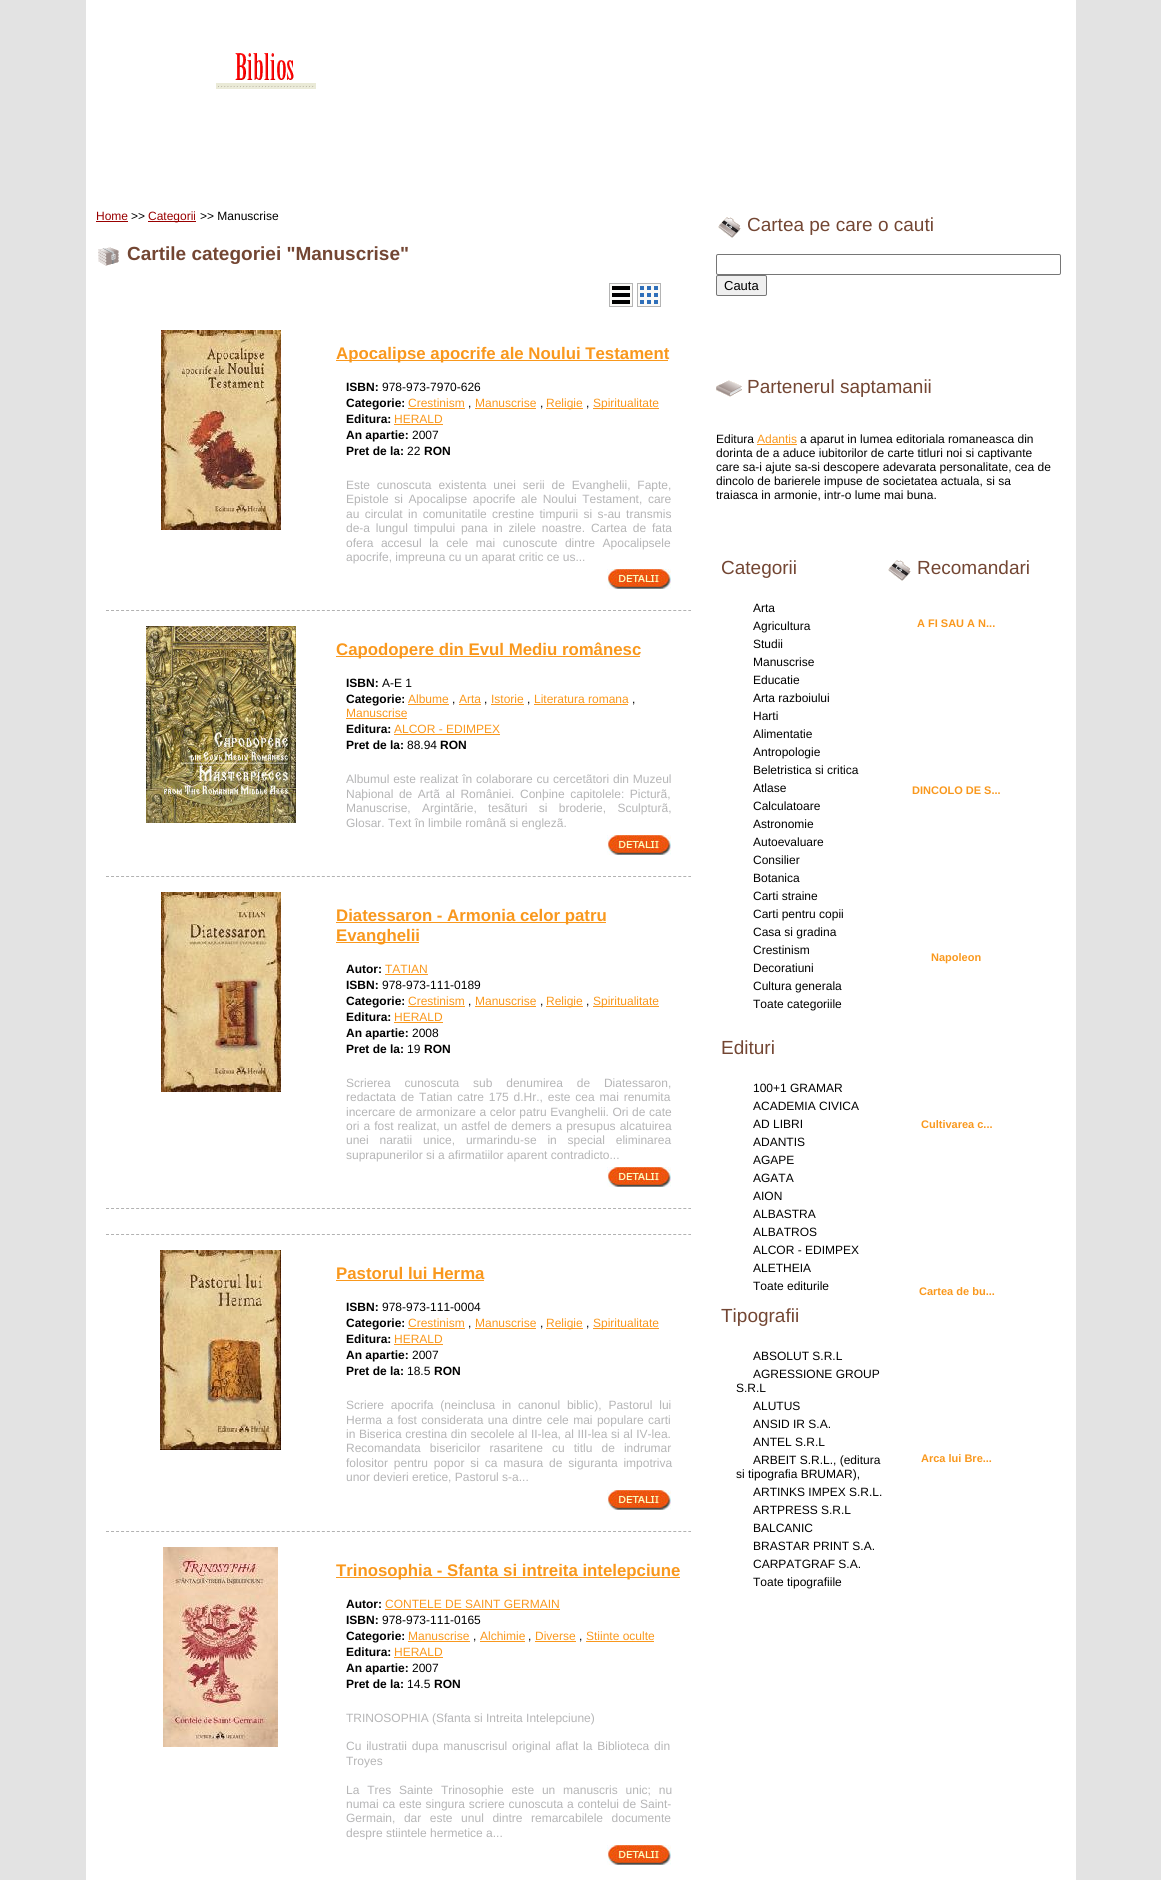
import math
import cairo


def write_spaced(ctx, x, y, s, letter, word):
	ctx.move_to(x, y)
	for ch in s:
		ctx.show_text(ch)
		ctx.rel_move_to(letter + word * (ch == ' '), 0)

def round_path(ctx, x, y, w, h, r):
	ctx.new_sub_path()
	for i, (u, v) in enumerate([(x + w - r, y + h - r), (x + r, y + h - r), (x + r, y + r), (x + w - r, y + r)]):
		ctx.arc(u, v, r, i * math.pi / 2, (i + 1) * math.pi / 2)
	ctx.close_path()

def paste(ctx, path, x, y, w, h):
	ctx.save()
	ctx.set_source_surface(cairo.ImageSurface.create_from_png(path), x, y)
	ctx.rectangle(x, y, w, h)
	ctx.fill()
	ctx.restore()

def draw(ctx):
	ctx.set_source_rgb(0.89, 0.89, 0.89)
	ctx.paint()
	ctx.set_source_rgb(1, 1, 1)
	ctx.rectangle(86, 0, 990, 1880)
	ctx.fill()
	paste(ctx, 'media/1.png', 216, 53, 100, 36)
	ctx.select_font_face('Liberation Sans')
	ctx.set_font_size(12)
	ctx.set_source_rgb(0.6, 0, 0)
	ctx.move_to(96, 220)
	ctx.show_text('Home')
	ctx.rectangle(96, 221, 32, 1)
	ctx.fill()
	ctx.set_source_rgb(0, 0, 0)
	ctx.move_to(131, 220)
	ctx.show_text('>>')
	ctx.set_source_rgb(0.6, 0, 0)
	ctx.rectangle(148, 221, 48, 1)
	ctx.fill()
	ctx.move_to(148, 220)
	ctx.show_text('Categorii')
	ctx.set_source_rgb(0, 0, 0)
	ctx.move_to(200, 220)
	ctx.show_text('>> Manuscrise')
	paste(ctx, 'media/2.png', 98, 247, 21, 19)
	ctx.select_font_face('Liberation Sans', cairo.FONT_SLANT_NORMAL, cairo.FONT_WEIGHT_BOLD)
	ctx.set_font_size(19)
	ctx.set_source_rgb(0.451, 0.275, 0.2)
	ctx.move_to(127, 260)
	ctx.show_text('Cartile categoriei "Manuscrise"')
	paste(ctx, 'media/3.png', 609, 283, 24, 24)
	paste(ctx, 'media/4.png', 637, 283, 24, 24)
	ctx.new_path()
	ctx.move_to(106, 610.5)
	ctx.line_to(691, 610.5)
	ctx.set_source_rgb(0.698, 0.698, 0.698)
	ctx.set_line_width(1)
	ctx.set_dash([3, 2.02])
	ctx.stroke()
	paste(ctx, 'media/5.png', 161, 330, 120, 200)
	ctx.set_source_rgb(0.973, 0.596, 0.114)
	ctx.rectangle(336, 360, 332, 1)
	ctx.fill()
	ctx.set_font_size(16.8)
	ctx.move_to(336, 359)
	ctx.show_text('Apocalipse apocrife ale Noului Testament')
	ctx.set_font_size(12)
	ctx.set_source_rgb(0, 0, 0)
	ctx.move_to(346, 391)
	ctx.show_text('ISBN:')
	ctx.select_font_face('Liberation Sans')
	ctx.move_to(382, 391)
	ctx.show_text('978-973-7970-626')
	ctx.select_font_face('Liberation Sans', cairo.FONT_SLANT_NORMAL, cairo.FONT_WEIGHT_BOLD)
	ctx.move_to(346, 407)
	ctx.show_text('Categorie:')
	ctx.select_font_face('Liberation Sans')
	ctx.set_source_rgb(0.973, 0.596, 0.114)
	ctx.move_to(408, 407)
	ctx.show_text('Crestinism')
	ctx.rectangle(408, 408, 57, 1)
	ctx.fill()
	ctx.set_source_rgb(0, 0, 0)
	ctx.move_to(468, 407)
	ctx.show_text(',')
	ctx.set_source_rgb(0.973, 0.596, 0.114)
	ctx.move_to(475, 407)
	ctx.show_text('Manuscrise')
	ctx.rectangle(475, 408, 61, 1)
	ctx.fill()
	ctx.set_source_rgb(0, 0, 0)
	ctx.move_to(540, 407)
	ctx.show_text(',')
	ctx.set_source_rgb(0.973, 0.596, 0.114)
	ctx.rectangle(546, 408, 37, 1)
	ctx.fill()
	ctx.move_to(546, 407)
	ctx.show_text('Religie')
	ctx.set_source_rgb(0, 0, 0)
	ctx.move_to(586, 407)
	ctx.show_text(',')
	ctx.set_source_rgb(0.973, 0.596, 0.114)
	ctx.rectangle(593, 408, 66, 1)
	ctx.fill()
	ctx.move_to(593, 407)
	ctx.show_text('Spiritualitate')
	ctx.select_font_face('Liberation Sans', cairo.FONT_SLANT_NORMAL, cairo.FONT_WEIGHT_BOLD)
	ctx.set_source_rgb(0, 0, 0)
	ctx.move_to(346, 423)
	ctx.show_text('Editura:')
	ctx.select_font_face('Liberation Sans')
	ctx.set_source_rgb(0.973, 0.596, 0.114)
	ctx.move_to(394, 423)
	ctx.show_text('HERALD')
	ctx.rectangle(394, 424, 49, 1)
	ctx.fill()
	ctx.select_font_face('Liberation Sans', cairo.FONT_SLANT_NORMAL, cairo.FONT_WEIGHT_BOLD)
	ctx.set_source_rgb(0, 0, 0)
	ctx.move_to(346, 439)
	ctx.show_text('An apartie:')
	ctx.select_font_face('Liberation Sans')
	ctx.move_to(412, 439)
	ctx.show_text('2007')
	ctx.select_font_face('Liberation Sans', cairo.FONT_SLANT_NORMAL, cairo.FONT_WEIGHT_BOLD)
	ctx.move_to(346, 455)
	ctx.show_text('Pret de la:')
	ctx.select_font_face('Liberation Sans')
	ctx.move_to(407, 455)
	ctx.show_text('22')
	ctx.select_font_face('Liberation Sans', cairo.FONT_SLANT_NORMAL, cairo.FONT_WEIGHT_BOLD)
	ctx.move_to(424, 455)
	ctx.show_text('RON')
	ctx.select_font_face('Liberation Sans')
	ctx.set_source_rgb(0.71, 0.71, 0.714)
	write_spaced(ctx, 346, 489, 'Este cunoscuta existenta unei serii de Evanghelii, Fapte,', 0, 3.5)
	write_spaced(ctx, 346, 503, 'Epistole si Apocalipse apocrife ale Noului Testament, care', 0, 2.25)
	write_spaced(ctx, 346, 518, 'au circulat in comunitatile crestine timpurii si s-au transmis', 0, 2)
	write_spaced(ctx, 346, 532, 'de-a lungul timpului pana in zilele noastre. Cartea de fata', 0, 2.5)
	write_spaced(ctx, 346, 547, 'ofera accesul la cele mai cunoscute dintre Apocalipsele', 0, 4.25)
	ctx.move_to(346, 561)
	ctx.show_text('apocrife, impreuna cu un aparat critic ce us...')
	paste(ctx, 'media/6.png', 607, 569, 64, 20)
	ctx.new_path()
	ctx.move_to(106, 876.5)
	ctx.line_to(691, 876.5)
	ctx.set_source_rgb(0.698, 0.698, 0.698)
	ctx.stroke()
	paste(ctx, 'media/7.png', 146, 626, 150, 197)
	ctx.set_source_rgb(0.973, 0.596, 0.114)
	ctx.rectangle(336, 656, 304, 1)
	ctx.fill()
	ctx.select_font_face('Liberation Sans', cairo.FONT_SLANT_NORMAL, cairo.FONT_WEIGHT_BOLD)
	ctx.set_font_size(16.8)
	ctx.move_to(336, 655)
	ctx.show_text('Capodopere din Evul Mediu românesc')
	ctx.set_font_size(12)
	ctx.set_source_rgb(0, 0, 0)
	ctx.move_to(346, 687)
	ctx.show_text('ISBN:')
	ctx.select_font_face('Liberation Sans')
	ctx.move_to(382, 687)
	ctx.show_text('A-E 1')
	ctx.select_font_face('Liberation Sans', cairo.FONT_SLANT_NORMAL, cairo.FONT_WEIGHT_BOLD)
	ctx.move_to(346, 703)
	ctx.show_text('Categorie:')
	ctx.select_font_face('Liberation Sans')
	ctx.set_source_rgb(0.973, 0.596, 0.114)
	ctx.move_to(408, 703)
	ctx.show_text('Albume')
	ctx.rectangle(408, 704, 41, 1)
	ctx.fill()
	ctx.set_source_rgb(0, 0, 0)
	ctx.move_to(452, 703)
	ctx.show_text(',')
	ctx.set_source_rgb(0.973, 0.596, 0.114)
	ctx.move_to(459, 703)
	ctx.show_text('Arta')
	ctx.rectangle(459, 704, 22, 1)
	ctx.fill()
	ctx.set_source_rgb(0, 0, 0)
	ctx.move_to(484, 703)
	ctx.show_text(',')
	ctx.set_source_rgb(0.973, 0.596, 0.114)
	ctx.move_to(491, 703)
	ctx.show_text('Istorie')
	ctx.rectangle(491, 704, 33, 1)
	ctx.fill()
	ctx.set_source_rgb(0, 0, 0)
	ctx.move_to(527, 703)
	ctx.show_text(',')
	ctx.set_source_rgb(0.973, 0.596, 0.114)
	ctx.move_to(534, 703)
	ctx.show_text('Literatura romana')
	ctx.rectangle(534, 704, 94, 1)
	ctx.fill()
	ctx.set_source_rgb(0, 0, 0)
	ctx.move_to(632, 703)
	ctx.show_text(',')
	ctx.set_source_rgb(0.973, 0.596, 0.114)
	ctx.move_to(346, 717)
	ctx.show_text('Manuscrise')
	ctx.rectangle(346, 718, 61, 1)
	ctx.fill()
	ctx.select_font_face('Liberation Sans', cairo.FONT_SLANT_NORMAL, cairo.FONT_WEIGHT_BOLD)
	ctx.set_source_rgb(0, 0, 0)
	ctx.move_to(346, 733)
	ctx.show_text('Editura:')
	ctx.select_font_face('Liberation Sans')
	ctx.set_source_rgb(0.973, 0.596, 0.114)
	ctx.move_to(394, 733)
	ctx.show_text('ALCOR - EDIMPEX')
	ctx.rectangle(394, 734, 106, 1)
	ctx.fill()
	ctx.select_font_face('Liberation Sans', cairo.FONT_SLANT_NORMAL, cairo.FONT_WEIGHT_BOLD)
	ctx.set_source_rgb(0, 0, 0)
	ctx.move_to(346, 749)
	ctx.show_text('Pret de la:')
	ctx.select_font_face('Liberation Sans')
	ctx.move_to(407, 749)
	ctx.show_text('88.94')
	ctx.select_font_face('Liberation Sans', cairo.FONT_SLANT_NORMAL, cairo.FONT_WEIGHT_BOLD)
	ctx.move_to(440, 749)
	ctx.show_text('RON')
	ctx.select_font_face('Liberation Sans')
	ctx.set_source_rgb(0.71, 0.71, 0.714)
	write_spaced(ctx, 346, 783, 'Albumul este realizat în colaborare cu cercetãtori din Muzeul', 0, 0.5)
	write_spaced(ctx, 346, 798, 'Naþional de Artã al României. Conþine capitolele: Picturã,', 0, 2.25)
	write_spaced(ctx, 346, 812, 'Manuscrise, Argintãrie, tesãturi si broderie, Sculpturã,', 0, 8)
	ctx.move_to(346, 827)
	ctx.show_text('Glosar. Text în limbile românã si englezã.')
	paste(ctx, 'media/6.png', 607, 835, 64, 20)
	ctx.new_path()
	ctx.move_to(106, 1208.5)
	ctx.line_to(691, 1208.5)
	ctx.set_source_rgb(0.698, 0.698, 0.698)
	ctx.stroke()
	paste(ctx, 'media/8.png', 161, 892, 120, 200)
	ctx.set_source_rgb(0.973, 0.596, 0.114)
	ctx.rectangle(336, 922, 270, 1)
	ctx.fill()
	ctx.select_font_face('Liberation Sans', cairo.FONT_SLANT_NORMAL, cairo.FONT_WEIGHT_BOLD)
	ctx.set_font_size(16.8)
	ctx.move_to(336, 921)
	ctx.show_text('Diatessaron - Armonia celor patru')
	ctx.rectangle(336, 942, 83, 1)
	ctx.fill()
	ctx.move_to(336, 941)
	ctx.show_text('Evanghelii')
	ctx.set_font_size(12)
	ctx.set_source_rgb(0, 0, 0)
	ctx.move_to(346, 973)
	ctx.show_text('Autor:')
	ctx.select_font_face('Liberation Sans')
	ctx.set_source_rgb(0.973, 0.596, 0.114)
	ctx.move_to(385, 973)
	ctx.show_text('TATIAN')
	ctx.rectangle(385, 974, 43, 1)
	ctx.fill()
	ctx.select_font_face('Liberation Sans', cairo.FONT_SLANT_NORMAL, cairo.FONT_WEIGHT_BOLD)
	ctx.set_source_rgb(0, 0, 0)
	ctx.move_to(346, 989)
	ctx.show_text('ISBN:')
	ctx.select_font_face('Liberation Sans')
	ctx.move_to(382, 989)
	ctx.show_text('978-973-111-0189')
	ctx.select_font_face('Liberation Sans', cairo.FONT_SLANT_NORMAL, cairo.FONT_WEIGHT_BOLD)
	ctx.move_to(346, 1005)
	ctx.show_text('Categorie:')
	ctx.select_font_face('Liberation Sans')
	ctx.set_source_rgb(0.973, 0.596, 0.114)
	ctx.move_to(408, 1005)
	ctx.show_text('Crestinism')
	ctx.rectangle(408, 1006, 57, 1)
	ctx.fill()
	ctx.set_source_rgb(0, 0, 0)
	ctx.move_to(468, 1005)
	ctx.show_text(',')
	ctx.set_source_rgb(0.973, 0.596, 0.114)
	ctx.move_to(475, 1005)
	ctx.show_text('Manuscrise')
	ctx.rectangle(475, 1006, 61, 1)
	ctx.fill()
	ctx.set_source_rgb(0, 0, 0)
	ctx.move_to(540, 1005)
	ctx.show_text(',')
	ctx.set_source_rgb(0.973, 0.596, 0.114)
	ctx.rectangle(546, 1006, 37, 1)
	ctx.fill()
	ctx.move_to(546, 1005)
	ctx.show_text('Religie')
	ctx.set_source_rgb(0, 0, 0)
	ctx.move_to(586, 1005)
	ctx.show_text(',')
	ctx.set_source_rgb(0.973, 0.596, 0.114)
	ctx.rectangle(593, 1006, 66, 1)
	ctx.fill()
	ctx.move_to(593, 1005)
	ctx.show_text('Spiritualitate')
	ctx.select_font_face('Liberation Sans', cairo.FONT_SLANT_NORMAL, cairo.FONT_WEIGHT_BOLD)
	ctx.set_source_rgb(0, 0, 0)
	ctx.move_to(346, 1021)
	ctx.show_text('Editura:')
	ctx.select_font_face('Liberation Sans')
	ctx.set_source_rgb(0.973, 0.596, 0.114)
	ctx.move_to(394, 1021)
	ctx.show_text('HERALD')
	ctx.rectangle(394, 1022, 49, 1)
	ctx.fill()
	ctx.select_font_face('Liberation Sans', cairo.FONT_SLANT_NORMAL, cairo.FONT_WEIGHT_BOLD)
	ctx.set_source_rgb(0, 0, 0)
	ctx.move_to(346, 1037)
	ctx.show_text('An apartie:')
	ctx.select_font_face('Liberation Sans')
	ctx.move_to(412, 1037)
	ctx.show_text('2008')
	ctx.select_font_face('Liberation Sans', cairo.FONT_SLANT_NORMAL, cairo.FONT_WEIGHT_BOLD)
	ctx.move_to(346, 1053)
	ctx.show_text('Pret de la:')
	ctx.select_font_face('Liberation Sans')
	ctx.move_to(407, 1053)
	ctx.show_text('19')
	ctx.select_font_face('Liberation Sans', cairo.FONT_SLANT_NORMAL, cairo.FONT_WEIGHT_BOLD)
	ctx.move_to(424, 1053)
	ctx.show_text('RON')
	ctx.select_font_face('Liberation Sans')
	ctx.set_source_rgb(0.71, 0.71, 0.714)
	write_spaced(ctx, 346, 1087, 'Scrierea cunoscuta sub denumirea de Diatessaron,', 0, 10.5)
	write_spaced(ctx, 346, 1101, 'redactata de Tatian catre 175 d.Hr., este cea mai renumita', 0, 1.5)
	write_spaced(ctx, 346, 1116, 'incercare de armonizare a celor patru Evanghelii. Ori de cate', 0, 0.25)
	write_spaced(ctx, 346, 1130, 'ori a fost realizat, un astfel de demers a presupus alcatuirea', 0, 0.75)
	write_spaced(ctx, 346, 1144, 'unei naratii unice, urmarindu-se in special eliminarea', 0, 7.5)
	ctx.move_to(346, 1159)
	ctx.show_text('suprapunerilor si a afirmatiilor aparent contradicto...')
	paste(ctx, 'media/6.png', 607, 1167, 64, 20)
	ctx.new_path()
	ctx.move_to(106, 1234.5)
	ctx.line_to(691, 1234.5)
	ctx.set_source_rgb(0.698, 0.698, 0.698)
	ctx.stroke()
	ctx.new_path()
	ctx.move_to(106, 1531.5)
	ctx.line_to(691, 1531.5)
	ctx.stroke()
	paste(ctx, 'media/9.png', 160, 1250, 121, 200)
	ctx.select_font_face('Liberation Sans', cairo.FONT_SLANT_NORMAL, cairo.FONT_WEIGHT_BOLD)
	ctx.set_font_size(16.8)
	ctx.set_source_rgb(0.973, 0.596, 0.114)
	ctx.move_to(336, 1279)
	ctx.show_text('Pastorul lui Herma')
	ctx.rectangle(336, 1280, 148, 1)
	ctx.fill()
	ctx.set_font_size(12)
	ctx.set_source_rgb(0, 0, 0)
	ctx.move_to(346, 1311)
	ctx.show_text('ISBN:')
	ctx.select_font_face('Liberation Sans')
	ctx.move_to(382, 1311)
	ctx.show_text('978-973-111-0004')
	ctx.select_font_face('Liberation Sans', cairo.FONT_SLANT_NORMAL, cairo.FONT_WEIGHT_BOLD)
	ctx.move_to(346, 1327)
	ctx.show_text('Categorie:')
	ctx.select_font_face('Liberation Sans')
	ctx.set_source_rgb(0.973, 0.596, 0.114)
	ctx.move_to(408, 1327)
	ctx.show_text('Crestinism')
	ctx.rectangle(408, 1328, 57, 1)
	ctx.fill()
	ctx.set_source_rgb(0, 0, 0)
	ctx.move_to(468, 1327)
	ctx.show_text(',')
	ctx.set_source_rgb(0.973, 0.596, 0.114)
	ctx.move_to(475, 1327)
	ctx.show_text('Manuscrise')
	ctx.rectangle(475, 1328, 61, 1)
	ctx.fill()
	ctx.set_source_rgb(0, 0, 0)
	ctx.move_to(540, 1327)
	ctx.show_text(',')
	ctx.set_source_rgb(0.973, 0.596, 0.114)
	ctx.rectangle(546, 1328, 37, 1)
	ctx.fill()
	ctx.move_to(546, 1327)
	ctx.show_text('Religie')
	ctx.set_source_rgb(0, 0, 0)
	ctx.move_to(586, 1327)
	ctx.show_text(',')
	ctx.set_source_rgb(0.973, 0.596, 0.114)
	ctx.rectangle(593, 1328, 66, 1)
	ctx.fill()
	ctx.move_to(593, 1327)
	ctx.show_text('Spiritualitate')
	ctx.select_font_face('Liberation Sans', cairo.FONT_SLANT_NORMAL, cairo.FONT_WEIGHT_BOLD)
	ctx.set_source_rgb(0, 0, 0)
	ctx.move_to(346, 1343)
	ctx.show_text('Editura:')
	ctx.select_font_face('Liberation Sans')
	ctx.set_source_rgb(0.973, 0.596, 0.114)
	ctx.move_to(394, 1343)
	ctx.show_text('HERALD')
	ctx.rectangle(394, 1344, 49, 1)
	ctx.fill()
	ctx.select_font_face('Liberation Sans', cairo.FONT_SLANT_NORMAL, cairo.FONT_WEIGHT_BOLD)
	ctx.set_source_rgb(0, 0, 0)
	ctx.move_to(346, 1359)
	ctx.show_text('An apartie:')
	ctx.select_font_face('Liberation Sans')
	ctx.move_to(412, 1359)
	ctx.show_text('2007')
	ctx.select_font_face('Liberation Sans', cairo.FONT_SLANT_NORMAL, cairo.FONT_WEIGHT_BOLD)
	ctx.move_to(346, 1375)
	ctx.show_text('Pret de la:')
	ctx.select_font_face('Liberation Sans')
	ctx.move_to(407, 1375)
	ctx.show_text('18.5')
	ctx.select_font_face('Liberation Sans', cairo.FONT_SLANT_NORMAL, cairo.FONT_WEIGHT_BOLD)
	ctx.move_to(434, 1375)
	ctx.show_text('RON')
	ctx.select_font_face('Liberation Sans')
	ctx.set_source_rgb(0.71, 0.71, 0.714)
	write_spaced(ctx, 346, 1409, 'Scriere apocrifa (neinclusa in canonul biblic), Pastorul lui', 0, 3.5)
	write_spaced(ctx, 346, 1424, 'Herma a fost considerata una dintre cele mai populare carti', 0, 1.1)
	write_spaced(ctx, 346, 1438, 'in Biserica crestina din secolele al II-lea, al III-lea si al IV-lea.', 0, 0.25)
	write_spaced(ctx, 346, 1452, 'Recomandata bisericilor rasaritene cu titlu de indrumar', 0, 5.75)
	write_spaced(ctx, 346, 1467, 'folositor pentru popor si ca masura de siguranta impotriva', 0, 2.5)
	ctx.move_to(346, 1481)
	ctx.show_text('unor devieri eretice, Pastorul s-a...')
	paste(ctx, 'media/6.png', 607, 1490, 64, 20)
	paste(ctx, 'media/10.png', 163, 1547, 115, 200)
	ctx.set_source_rgb(0.973, 0.596, 0.114)
	ctx.rectangle(336, 1577, 344, 1)
	ctx.fill()
	ctx.select_font_face('Liberation Sans', cairo.FONT_SLANT_NORMAL, cairo.FONT_WEIGHT_BOLD)
	ctx.set_font_size(16.8)
	ctx.move_to(336, 1576)
	ctx.show_text('Trinosophia - Sfanta si intreita intelepciune')
	ctx.set_font_size(12)
	ctx.set_source_rgb(0, 0, 0)
	ctx.move_to(346, 1608)
	ctx.show_text('Autor:')
	ctx.select_font_face('Liberation Sans')
	ctx.set_source_rgb(0.973, 0.596, 0.114)
	ctx.move_to(385, 1608)
	ctx.show_text('CONTELE DE SAINT GERMAIN')
	ctx.rectangle(385, 1609, 175, 1)
	ctx.fill()
	ctx.select_font_face('Liberation Sans', cairo.FONT_SLANT_NORMAL, cairo.FONT_WEIGHT_BOLD)
	ctx.set_source_rgb(0, 0, 0)
	ctx.move_to(346, 1624)
	ctx.show_text('ISBN:')
	ctx.select_font_face('Liberation Sans')
	ctx.move_to(382, 1624)
	ctx.show_text('978-973-111-0165')
	ctx.select_font_face('Liberation Sans', cairo.FONT_SLANT_NORMAL, cairo.FONT_WEIGHT_BOLD)
	ctx.move_to(346, 1640)
	ctx.show_text('Categorie:')
	ctx.select_font_face('Liberation Sans')
	ctx.set_source_rgb(0.973, 0.596, 0.114)
	ctx.move_to(408, 1640)
	ctx.show_text('Manuscrise')
	ctx.rectangle(408, 1641, 62, 1)
	ctx.fill()
	ctx.set_source_rgb(0, 0, 0)
	ctx.move_to(473, 1640)
	ctx.show_text(',')
	ctx.set_source_rgb(0.973, 0.596, 0.114)
	ctx.move_to(480, 1640)
	ctx.show_text('Alchimie')
	ctx.rectangle(480, 1641, 45, 1)
	ctx.fill()
	ctx.set_source_rgb(0, 0, 0)
	ctx.move_to(528, 1640)
	ctx.show_text(',')
	ctx.set_source_rgb(0.973, 0.596, 0.114)
	ctx.move_to(535, 1640)
	ctx.show_text('Diverse')
	ctx.rectangle(535, 1641, 41, 1)
	ctx.fill()
	ctx.set_source_rgb(0, 0, 0)
	ctx.move_to(579, 1640)
	ctx.show_text(',')
	ctx.set_source_rgb(0.973, 0.596, 0.114)
	ctx.move_to(586, 1640)
	ctx.show_text('Stiinte oculte')
	ctx.rectangle(586, 1641, 68, 1)
	ctx.fill()
	ctx.select_font_face('Liberation Sans', cairo.FONT_SLANT_NORMAL, cairo.FONT_WEIGHT_BOLD)
	ctx.set_source_rgb(0, 0, 0)
	ctx.move_to(346, 1656)
	ctx.show_text('Editura:')
	ctx.select_font_face('Liberation Sans')
	ctx.set_source_rgb(0.973, 0.596, 0.114)
	ctx.move_to(394, 1656)
	ctx.show_text('HERALD')
	ctx.rectangle(394, 1657, 49, 1)
	ctx.fill()
	ctx.select_font_face('Liberation Sans', cairo.FONT_SLANT_NORMAL, cairo.FONT_WEIGHT_BOLD)
	ctx.set_source_rgb(0, 0, 0)
	ctx.move_to(346, 1672)
	ctx.show_text('An apartie:')
	ctx.select_font_face('Liberation Sans')
	ctx.move_to(412, 1672)
	ctx.show_text('2007')
	ctx.select_font_face('Liberation Sans', cairo.FONT_SLANT_NORMAL, cairo.FONT_WEIGHT_BOLD)
	ctx.move_to(346, 1688)
	ctx.show_text('Pret de la:')
	ctx.select_font_face('Liberation Sans')
	ctx.move_to(407, 1688)
	ctx.show_text('14.5')
	ctx.select_font_face('Liberation Sans', cairo.FONT_SLANT_NORMAL, cairo.FONT_WEIGHT_BOLD)
	ctx.move_to(434, 1688)
	ctx.show_text('RON')
	ctx.select_font_face('Liberation Sans')
	ctx.set_source_rgb(0.71, 0.71, 0.714)
	ctx.move_to(346, 1722)
	ctx.show_text('TRINOSOPHIA (Sfanta si Intreita Intelepciune)')
	write_spaced(ctx, 346, 1750, 'Cu ilustratii dupa manuscrisul original aflat la Biblioteca din', 0, 1.5)
	ctx.move_to(346, 1765)
	ctx.show_text('Troyes')
	write_spaced(ctx, 346, 1794, 'La Tres Sainte Trinosophie este un manuscris unic; nu', 0, 4.5)
	write_spaced(ctx, 346, 1808, 'numai ca este singura scriere cunoscuta a contelui de Saint-', 0, 0.5)
	write_spaced(ctx, 346, 1822, 'Germain, dar este unul dintre remarcabilele documente', 0, 5.25)
	ctx.move_to(346, 1837)
	ctx.show_text('despre stiintele hermetice a...')
	paste(ctx, 'media/6.png', 607, 1845, 64, 20)
	paste(ctx, 'media/11.png', 718, 217, 23, 21)
	ctx.set_font_size(19)
	ctx.set_source_rgb(0.451, 0.275, 0.2)
	ctx.move_to(747, 231)
	ctx.show_text('Cartea pe care o cauti')
	round_path(ctx, 716.5, 254.5, 344, 20, 1.5)
	ctx.set_source_rgb(0.463, 0.463, 0.463)
	ctx.set_dash([])
	ctx.stroke()
	ctx.set_source_rgb(0.937, 0.937, 0.937)
	round_path(ctx, 716.5, 275.5, 50, 20, 1.5)
	ctx.fill_preserve()
	ctx.set_source_rgb(0.463, 0.463, 0.463)
	ctx.stroke()
	ctx.set_font_size(13)
	ctx.set_source_rgb(0, 0, 0)
	ctx.move_to(724, 290)
	ctx.show_text('Cauta')
	paste(ctx, 'media/12.png', 716, 380, 26, 17)
	ctx.set_font_size(19)
	ctx.set_source_rgb(0.451, 0.275, 0.2)
	ctx.move_to(747, 393)
	ctx.show_text('Partenerul saptamanii')
	ctx.set_font_size(12)
	ctx.set_source_rgb(0, 0, 0)
	ctx.move_to(716, 443)
	ctx.show_text('Editura')
	ctx.set_source_rgb(0.973, 0.596, 0.114)
	ctx.move_to(757, 443)
	ctx.show_text('Adantis')
	ctx.rectangle(757, 444, 40, 1)
	ctx.fill()
	ctx.set_source_rgb(0, 0, 0)
	for x, y, s in [
		(800, 443, 'a aparut in lumea editoriala romaneasca din'),
		(716, 457, 'dorinta de a aduce iubitorilor de carte titluri noi si captivante'),
		(716, 471, 'care sa-i ajute sa-si descopere adevarata personalitate, cea de'),
		(716, 485, 'dincolo de barierele impuse de societatea actuala, si sa'),
		(716, 499, 'traiasca in armonie, intr-o lume mai buna.'),
	]:
		ctx.move_to(x, y)
		ctx.show_text(s)
	ctx.set_font_size(19)
	ctx.set_source_rgb(0.451, 0.275, 0.2)
	ctx.move_to(721, 574)
	ctx.show_text('Categorii')
	ctx.set_font_size(12)
	ctx.set_source_rgb(0, 0, 0)
	for x, y, s in [
		(753, 612, 'Arta'),
		(753, 630, 'Agricultura'),
		(753, 648, 'Studii'),
		(753, 666, 'Manuscrise'),
		(753, 684, 'Educatie'),
		(753, 702, 'Arta razboiului'),
		(753, 720, 'Harti'),
		(753, 738, 'Alimentatie'),
		(753, 756, 'Antropologie'),
		(753, 774, 'Beletristica si critica'),
		(753, 792, 'Atlase'),
		(753, 810, 'Calculatoare'),
		(753, 828, 'Astronomie'),
		(753, 846, 'Autoevaluare'),
		(753, 864, 'Consilier'),
		(753, 882, 'Botanica'),
		(753, 900, 'Carti straine'),
		(753, 918, 'Carti pentru copii'),
		(753, 936, 'Casa si gradina'),
		(753, 954, 'Crestinism'),
		(753, 972, 'Decoratiuni'),
		(753, 990, 'Cultura generala'),
		(753, 1008, 'Toate categoriile'),
	]:
		ctx.move_to(x, y)
		ctx.show_text(s)
	ctx.set_font_size(19)
	ctx.set_source_rgb(0.451, 0.275, 0.2)
	ctx.move_to(721, 1054)
	ctx.show_text('Edituri')
	ctx.set_font_size(12)
	ctx.set_source_rgb(0, 0, 0)
	for x, y, s in [
		(753, 1092, '100+1 GRAMAR'),
		(753, 1110, 'ACADEMIA CIVICA'),
		(753, 1128, 'AD LIBRI'),
		(753, 1146, 'ADANTIS'),
		(753, 1164, 'AGAPE'),
		(753, 1182, 'AGATA'),
		(753, 1200, 'AION'),
		(753, 1218, 'ALBASTRA'),
		(753, 1236, 'ALBATROS'),
		(753, 1254, 'ALCOR - EDIMPEX'),
		(753, 1272, 'ALETHEIA'),
		(753, 1290, 'Toate editurile'),
	]:
		ctx.move_to(x, y)
		ctx.show_text(s)
	ctx.set_font_size(19)
	ctx.set_source_rgb(0.451, 0.275, 0.2)
	ctx.move_to(721, 1322)
	ctx.show_text('Tipografii')
	ctx.set_font_size(12)
	ctx.set_source_rgb(0, 0, 0)
	for x, y, s in [
		(753, 1360, 'ABSOLUT S.R.L'),
		(753, 1378, 'AGRESSIONE GROUP'),
		(736, 1392, 'S.R.L'),
		(753, 1410, 'ALUTUS'),
		(753, 1428, 'ANSID IR S.A.'),
		(753, 1446, 'ANTEL S.R.L'),
		(753, 1464, 'ARBEIT S.R.L., (editura'),
		(736, 1478, 'si tipografia BRUMAR),'),
		(753, 1496, 'ARTINKS IMPEX S.R.L.'),
		(753, 1514, 'ARTPRESS S.R.L'),
		(753, 1532, 'BALCANIC'),
		(753, 1550, 'BRASTAR PRINT S.A.'),
		(753, 1568, 'CARPATGRAF S.A.'),
		(753, 1586, 'Toate tipografiile'),
	]:
		ctx.move_to(x, y)
		ctx.show_text(s)
	paste(ctx, 'media/11.png', 888, 560, 23, 21)
	ctx.set_font_size(19)
	ctx.set_source_rgb(0.451, 0.275, 0.2)
	ctx.move_to(917, 574)
	ctx.show_text('Recomandari')
	ctx.select_font_face('Liberation Sans', cairo.FONT_SLANT_NORMAL, cairo.FONT_WEIGHT_BOLD)
	ctx.set_font_size(11)
	ctx.set_source_rgb(0.973, 0.596, 0.114)
	for x, y, s in [
		(917, 627, 'A FI SAU A N...'),
		(912, 794, 'DINCOLO DE S...'),
		(931, 961, 'Napoleon'),
		(921, 1128, 'Cultivarea c...'),
		(919, 1295, 'Cartea de bu...'),
		(921, 1462, 'Arca lui Bre...'),
	]:
		ctx.move_to(x, y)
		ctx.show_text(s)


surface = cairo.ImageSurface(cairo.FORMAT_RGB24, 1161, 1880)
ctx = cairo.Context(surface)
options = cairo.FontOptions()
options.set_hint_metrics(cairo.HINT_METRICS_OFF)
options.set_hint_style(cairo.HINT_STYLE_NONE)
ctx.set_font_options(options)
ctx.set_miter_limit(4)
draw(ctx)
surface.write_to_png('image.png')
